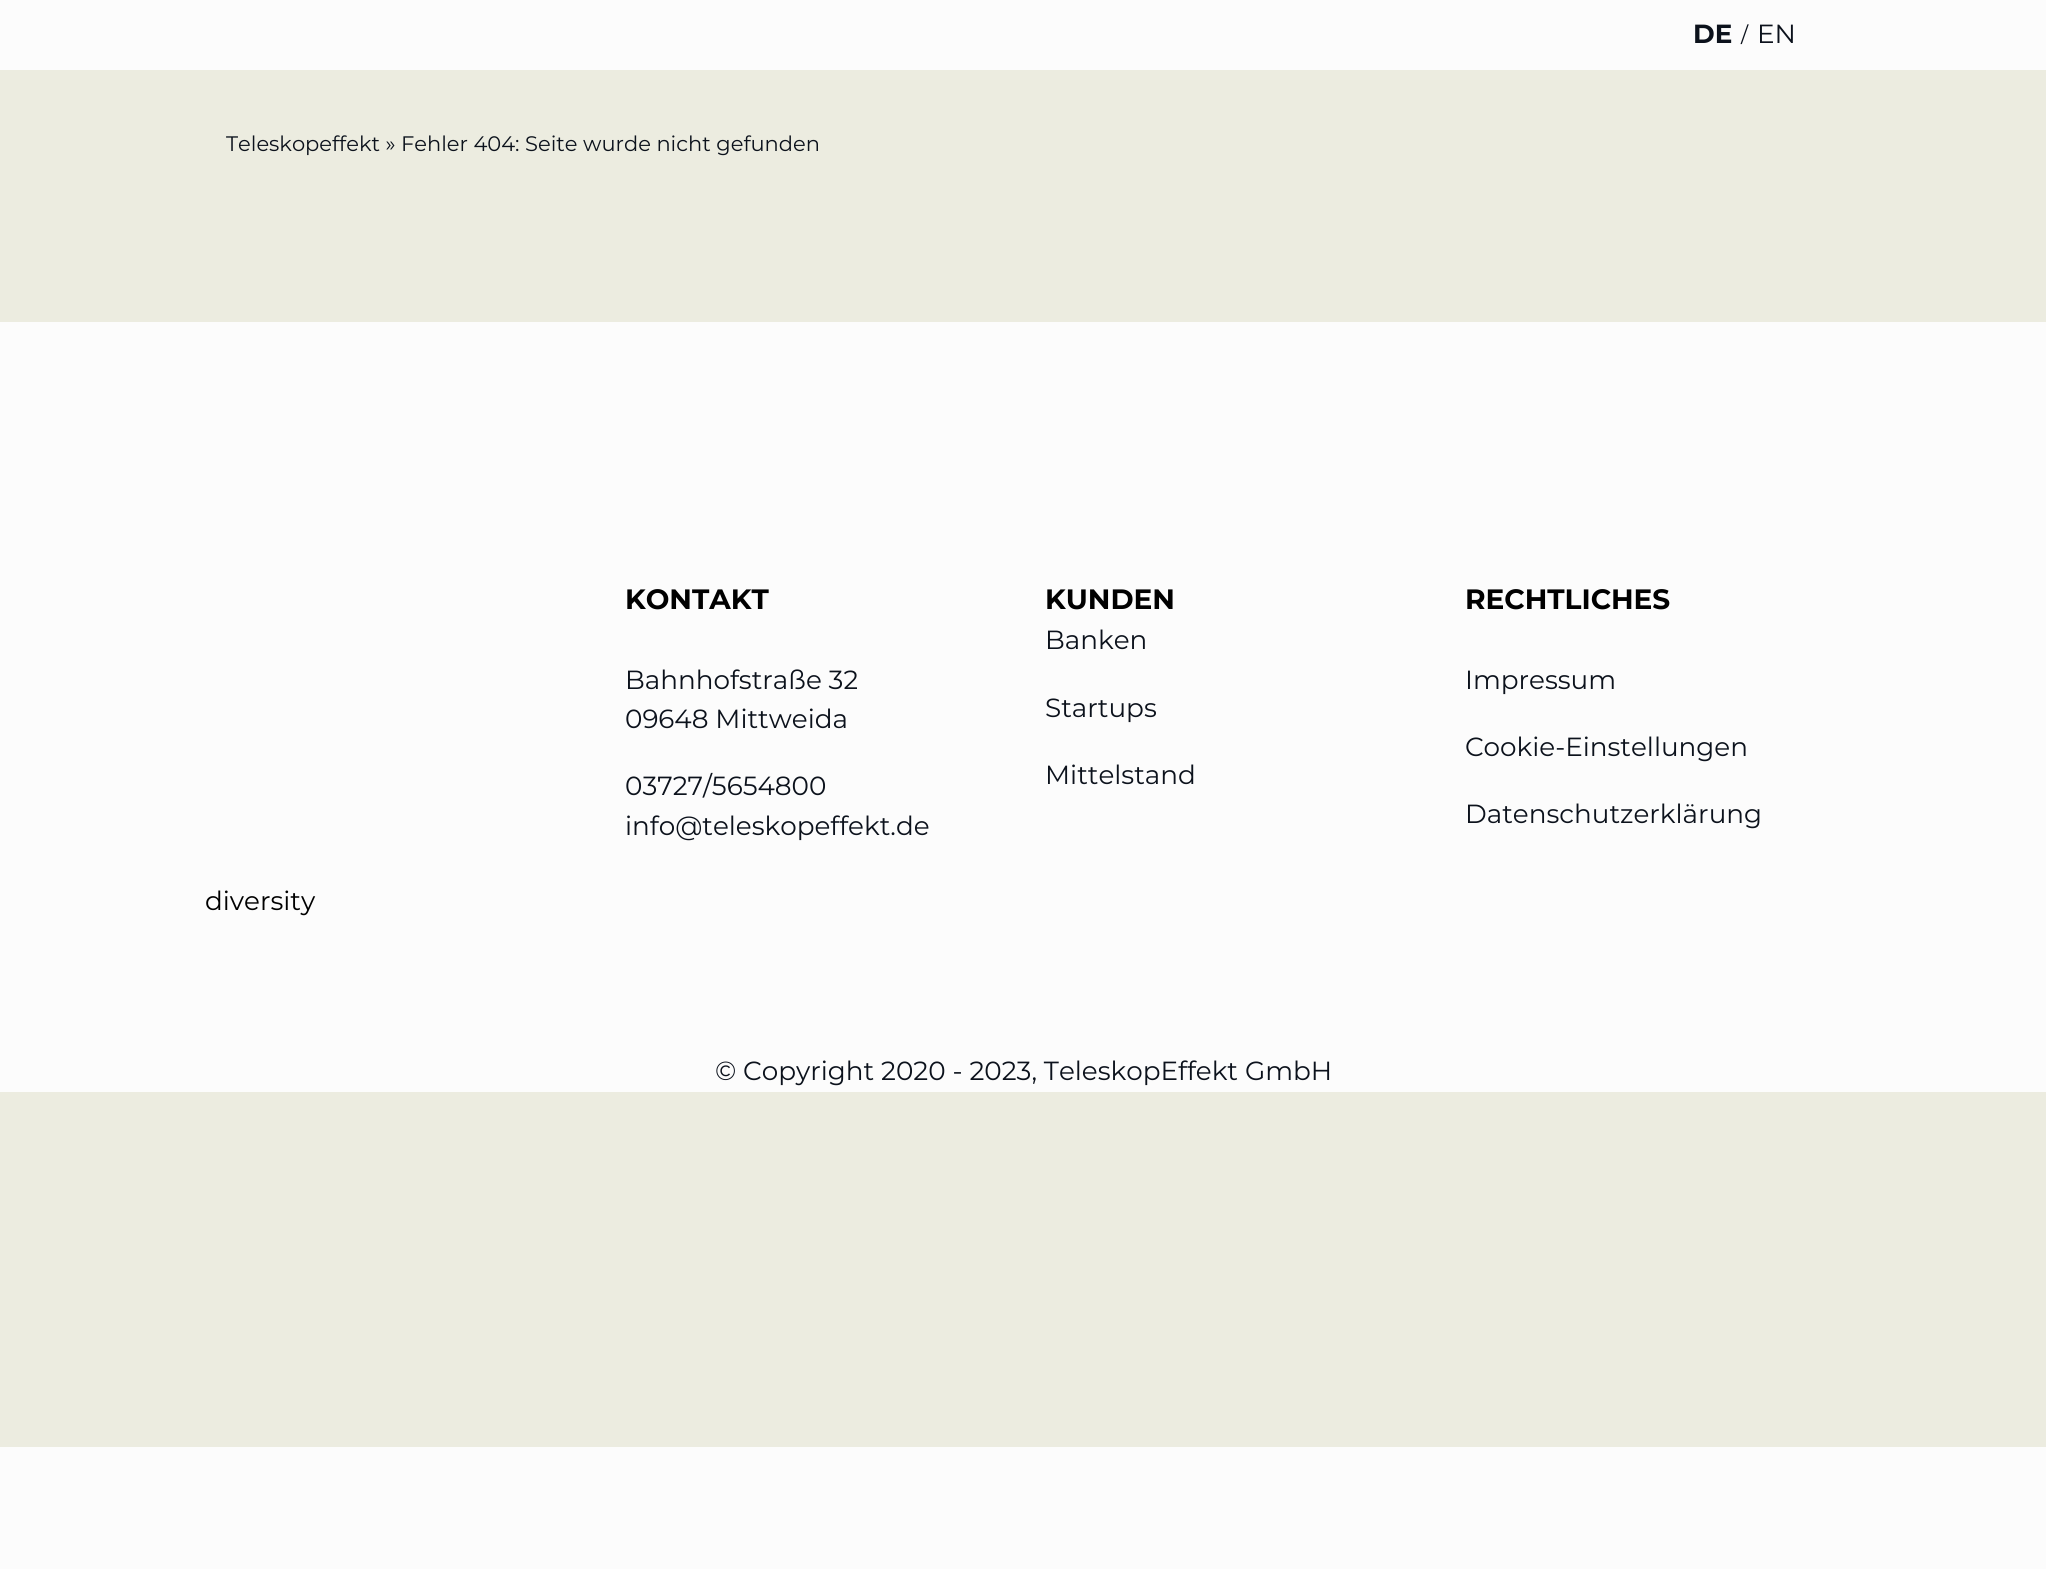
import math
import cairo


def draw(ctx):
	ctx.set_source_rgb(0.922, 0.922, 0.878)
	ctx.paint()
	ctx.set_source_rgb(0.988, 0.988, 0.988)
	ctx.rectangle(0, 0, 2046, 70)
	ctx.fill()
	ctx.select_font_face('Montserrat', cairo.FONT_SLANT_NORMAL, cairo.FONT_WEIGHT_BOLD)
	ctx.set_font_size(26.25)
	ctx.set_source_rgb(0.047, 0.071, 0.11)
	ctx.move_to(1693, 43)
	ctx.show_text('DE')
	ctx.select_font_face('Montserrat')
	ctx.set_font_size(21)
	ctx.move_to(1741, 42)
	ctx.show_text('/')
	ctx.set_font_size(26.25)
	ctx.move_to(1757, 43)
	ctx.show_text('EN')
	ctx.set_font_size(21)
	ctx.move_to(226, 151)
	ctx.show_text('Teleskopeffekt » Fehler 404: Seite wurde nicht gefunden')
	ctx.set_source_rgb(0.988, 0.988, 0.988)
	ctx.rectangle(0, 322, 2046, 770)
	ctx.fill()
	ctx.select_font_face('Montserrat', cairo.FONT_SLANT_NORMAL, cairo.FONT_WEIGHT_BOLD)
	ctx.set_font_size(28)
	ctx.set_source_rgb(0, 0, 0)
	ctx.move_to(625, 609)
	ctx.show_text('KONTAKT')
	ctx.select_font_face('Montserrat')
	ctx.set_font_size(26.25)
	ctx.set_source_rgb(0.047, 0.071, 0.11)
	for x, y, s in [
		(625, 689, 'Bahnhofstraße 32'),
		(625, 728, '09648 Mittweida'),
		(625, 795, '03727/5654800'),
		(625, 835, 'info@teleskopeffekt.de'),
	]:
		ctx.move_to(x, y)
		ctx.show_text(s)
	ctx.select_font_face('Montserrat', cairo.FONT_SLANT_NORMAL, cairo.FONT_WEIGHT_BOLD)
	ctx.set_font_size(28)
	ctx.set_source_rgb(0, 0, 0)
	ctx.move_to(1045, 609)
	ctx.show_text('KUNDEN')
	ctx.select_font_face('Montserrat')
	ctx.set_font_size(26.25)
	ctx.set_source_rgb(0.047, 0.071, 0.11)
	for x, y, s in [
		(1045, 649, 'Banken'),
		(1045, 717, 'Startups'),
		(1045, 784, 'Mittelstand'),
	]:
		ctx.move_to(x, y)
		ctx.show_text(s)
	ctx.select_font_face('Montserrat', cairo.FONT_SLANT_NORMAL, cairo.FONT_WEIGHT_BOLD)
	ctx.set_font_size(28)
	ctx.set_source_rgb(0, 0, 0)
	ctx.move_to(1465, 609)
	ctx.show_text('RECHTLICHES')
	ctx.select_font_face('Montserrat')
	ctx.set_font_size(26.25)
	ctx.set_source_rgb(0.047, 0.071, 0.11)
	for x, y, s in [
		(1465, 689, 'Impressum'),
		(1465, 756, 'Cookie-Einstellungen'),
		(1465, 823, 'Datenschutzerklärung'),
	]:
		ctx.move_to(x, y)
		ctx.show_text(s)
	ctx.set_source_rgb(0, 0, 0)
	ctx.move_to(205, 910)
	ctx.show_text('diversity')
	ctx.set_source_rgb(0.047, 0.071, 0.11)
	ctx.move_to(715, 1080)
	ctx.show_text('© Copyright 2020 - 2023, TeleskopEffekt GmbH')
	ctx.set_source_rgb(0.988, 0.988, 0.988)
	ctx.rectangle(0, 1447, 2046, 122)
	ctx.fill()


surface = cairo.ImageSurface(cairo.FORMAT_RGB24, 2046, 1569)
ctx = cairo.Context(surface)
options = cairo.FontOptions()
options.set_hint_metrics(cairo.HINT_METRICS_OFF)
options.set_hint_style(cairo.HINT_STYLE_NONE)
ctx.set_font_options(options)
ctx.set_miter_limit(4)
draw(ctx)
surface.write_to_png('image.png')
